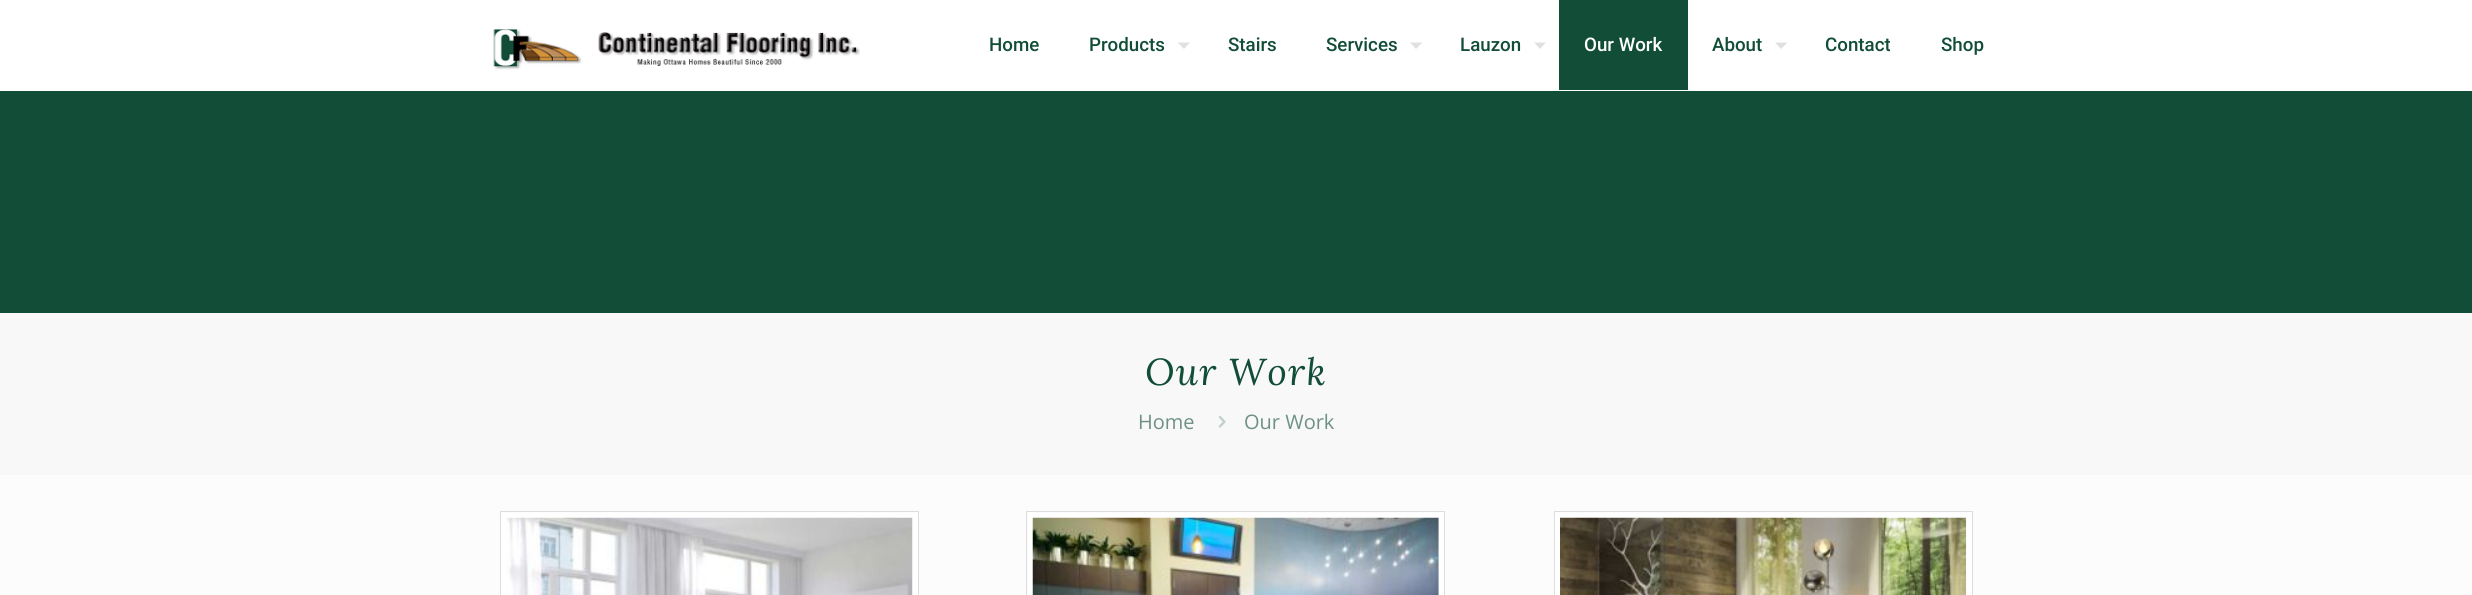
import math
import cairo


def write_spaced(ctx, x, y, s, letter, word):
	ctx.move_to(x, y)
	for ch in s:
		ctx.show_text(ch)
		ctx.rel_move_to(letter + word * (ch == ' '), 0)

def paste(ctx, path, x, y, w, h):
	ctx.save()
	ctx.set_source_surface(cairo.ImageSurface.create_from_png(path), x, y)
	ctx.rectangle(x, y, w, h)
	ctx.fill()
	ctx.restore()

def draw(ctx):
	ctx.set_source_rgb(0.988, 0.988, 0.988)
	ctx.paint()
	ctx.set_source_rgb(0.071, 0.302, 0.216)
	ctx.rectangle(0, 91, 2472, 222)
	ctx.fill()
	ctx.set_source_rgb(1, 1, 1)
	ctx.rectangle(0, 0, 2472, 91)
	ctx.fill()
	paste(ctx, 'media/1.png', 493, 29, 367, 41)
	ctx.select_font_face('Roboto Medium')
	ctx.set_font_size(18.75)
	ctx.set_source_rgb(0.071, 0.302, 0.216)
	ctx.move_to(989, 51)
	ctx.show_text('Home')
	ctx.move_to(1089, 51)
	ctx.show_text('Products')
	ctx.set_source_rgb(0.878, 0.878, 0.878)
	ctx.new_path()
	ctx.move_to(1177.5, 42.5)
	ctx.line_to(1190, 42.5)
	ctx.line_to(1184, 49)
	ctx.close_path()
	ctx.fill()
	ctx.set_source_rgb(0.071, 0.302, 0.216)
	ctx.move_to(1228, 51)
	ctx.show_text('Stairs')
	ctx.move_to(1326, 51)
	ctx.show_text('Services')
	ctx.set_source_rgb(0.878, 0.878, 0.878)
	ctx.new_path()
	ctx.move_to(1410, 42.5)
	ctx.line_to(1422.5, 42.5)
	ctx.line_to(1416, 49)
	ctx.close_path()
	ctx.fill()
	ctx.set_source_rgb(0.071, 0.302, 0.216)
	ctx.move_to(1460, 51)
	ctx.show_text('Lauzon')
	ctx.set_source_rgb(0.878, 0.878, 0.878)
	ctx.new_path()
	ctx.move_to(1534, 42.5)
	ctx.line_to(1546, 42.5)
	ctx.line_to(1540, 49)
	ctx.close_path()
	ctx.fill()
	ctx.set_source_rgb(0.071, 0.302, 0.216)
	ctx.rectangle(1559, 0, 129, 90)
	ctx.fill()
	ctx.set_source_rgb(1, 1, 1)
	ctx.move_to(1584, 51)
	ctx.show_text('Our Work')
	ctx.set_source_rgb(0.071, 0.302, 0.216)
	ctx.move_to(1712, 51)
	ctx.show_text('About')
	ctx.set_source_rgb(0.878, 0.878, 0.878)
	ctx.new_path()
	ctx.move_to(1775, 42.5)
	ctx.line_to(1787.5, 42.5)
	ctx.line_to(1781, 49)
	ctx.close_path()
	ctx.fill()
	ctx.set_source_rgb(0.071, 0.302, 0.216)
	ctx.move_to(1825, 51)
	ctx.show_text('Contact')
	ctx.move_to(1941, 51)
	ctx.show_text('Shop')
	ctx.set_source_rgb(0.969, 0.969, 0.969)
	ctx.rectangle(0, 313, 2472, 162)
	ctx.fill()
	ctx.select_font_face('Lora', cairo.FONT_SLANT_ITALIC)
	ctx.set_font_size(37.5)
	ctx.set_source_rgb(0.071, 0.302, 0.216)
	write_spaced(ctx, 1145, 385, 'Our Work', 1.25, 0)
	ctx.select_font_face('Open Sans')
	ctx.set_font_size(20)
	ctx.set_source_rgb(0.431, 0.569, 0.518)
	ctx.move_to(1138, 429)
	ctx.show_text('Home')
	paste(ctx, 'media/2.png', 1218, 416, 8, 12)
	ctx.move_to(1244, 429)
	ctx.show_text('Our Work')
	ctx.rectangle(500.5, 511.5, 418, 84)
	ctx.set_source_rgb(0.867, 0.867, 0.867)
	ctx.set_line_width(1)
	ctx.stroke()
	ctx.set_source_rgb(1, 1, 1)
	ctx.rectangle(501, 513, 417, 82)
	ctx.fill()
	paste(ctx, 'media/3.png', 506, 517, 407, 78)
	ctx.rectangle(1026.5, 511.5, 418, 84)
	ctx.set_source_rgb(0.867, 0.867, 0.867)
	ctx.stroke()
	ctx.set_source_rgb(1, 1, 1)
	ctx.rectangle(1028, 513, 416, 82)
	ctx.fill()
	paste(ctx, 'media/4.png', 1032, 517, 407, 78)
	ctx.rectangle(1554.5, 511.5, 418, 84)
	ctx.set_source_rgb(0.867, 0.867, 0.867)
	ctx.stroke()
	ctx.set_source_rgb(1, 1, 1)
	ctx.rectangle(1555, 513, 416, 82)
	ctx.fill()
	paste(ctx, 'media/5.png', 1560, 517, 407, 78)


surface = cairo.ImageSurface(cairo.FORMAT_RGB24, 2472, 595)
ctx = cairo.Context(surface)
options = cairo.FontOptions()
options.set_hint_metrics(cairo.HINT_METRICS_OFF)
options.set_hint_style(cairo.HINT_STYLE_NONE)
ctx.set_font_options(options)
ctx.set_miter_limit(4)
draw(ctx)
surface.write_to_png('image.png')
